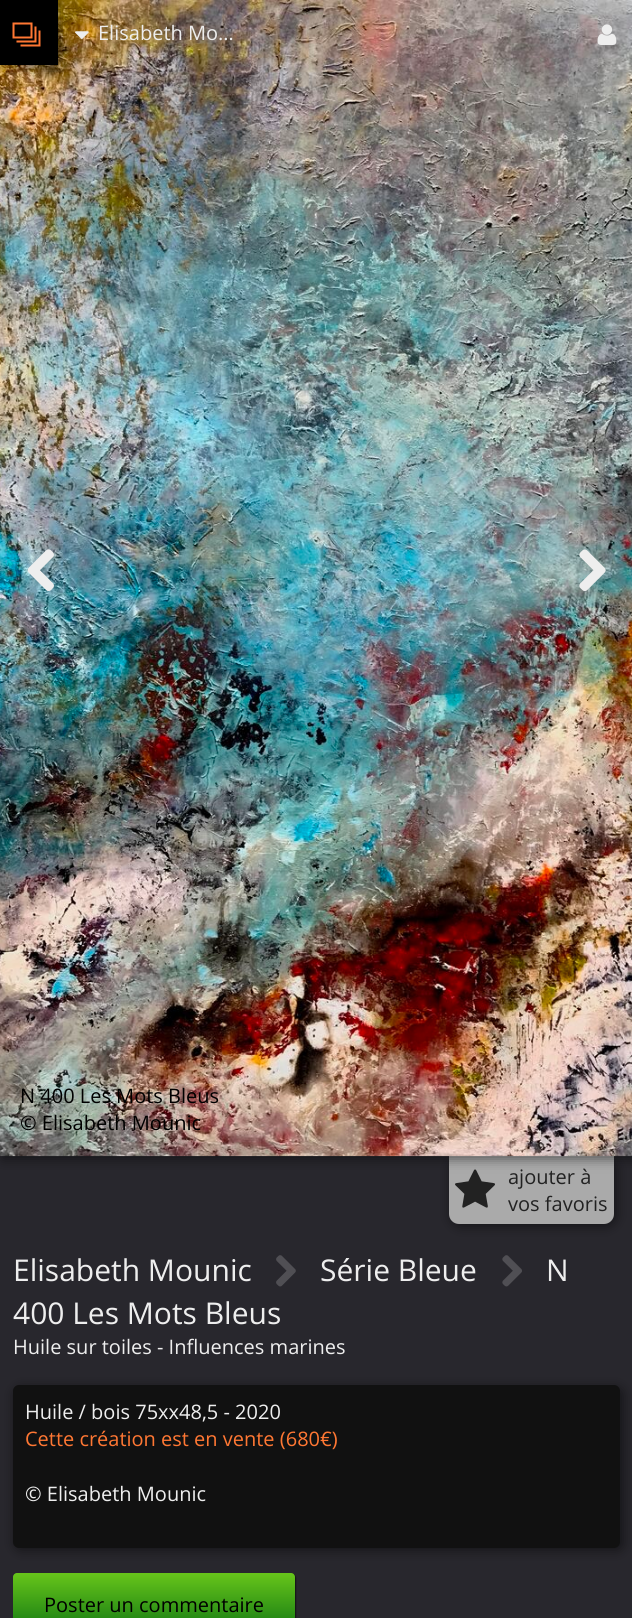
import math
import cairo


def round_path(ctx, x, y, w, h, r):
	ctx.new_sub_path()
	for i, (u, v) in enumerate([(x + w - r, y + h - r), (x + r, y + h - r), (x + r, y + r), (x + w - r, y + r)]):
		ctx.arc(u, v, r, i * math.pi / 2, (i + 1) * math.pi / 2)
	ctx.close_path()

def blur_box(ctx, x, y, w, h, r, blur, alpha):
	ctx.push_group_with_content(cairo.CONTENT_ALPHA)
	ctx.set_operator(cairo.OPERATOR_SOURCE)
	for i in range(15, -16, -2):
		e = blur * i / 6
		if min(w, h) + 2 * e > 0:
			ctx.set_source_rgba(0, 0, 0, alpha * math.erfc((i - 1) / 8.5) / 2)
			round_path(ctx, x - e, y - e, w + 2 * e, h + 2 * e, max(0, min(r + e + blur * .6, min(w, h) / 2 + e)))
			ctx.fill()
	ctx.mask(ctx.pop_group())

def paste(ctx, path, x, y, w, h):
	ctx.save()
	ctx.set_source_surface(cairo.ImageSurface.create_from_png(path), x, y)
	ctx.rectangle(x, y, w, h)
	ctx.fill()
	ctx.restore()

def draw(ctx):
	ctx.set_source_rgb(0.157, 0.153, 0.176)
	ctx.paint()
	ctx.set_source_rgb(0, 0, 0)
	blur_box(ctx, 451, 1159, 165, 67, 10, 6, 0.5)
	ctx.set_source_rgb(0.667, 0.667, 0.667)
	ctx.new_path()
	ctx.move_to(449, 1156)
	ctx.line_to(614, 1156)
	ctx.line_to(614, 1214)
	ctx.curve_to(614, 1219.5, 609.5, 1224, 604, 1224)
	ctx.line_to(459, 1224)
	ctx.curve_to(453.5, 1224, 449, 1219.5, 449, 1214)
	ctx.close_path()
	ctx.fill()
	paste(ctx, 'media/7.png', 455, 1169, 40, 39)
	ctx.set_source_rgb(0, 0, 0)
	blur_box(ctx, 3, 3, 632, 1156, 0, 6, 0.5)
	paste(ctx, 'media/4.png', 0, 0, 632, 1157)
	blur_box(ctx, 0, 4, 58, 65, 0, 6, 0.5)
	ctx.set_source_rgb(0, 0, 0)
	ctx.rectangle(0, 0, 58, 65)
	ctx.fill()
	paste(ctx, 'media/1.png', 12, 22, 29, 25)
	paste(ctx, 'media/2.png', 75, 31, 14, 8)
	ctx.select_font_face('Open Sans')
	ctx.set_font_size(20)
	ctx.set_source_rgb(0.933, 0.933, 0.933)
	ctx.move_to(98, 40)
	ctx.show_text('Elisabeth Mo…')
	paste(ctx, 'media/3.png', 597, 24, 20, 21)
	paste(ctx, 'media/5.png', 27, 549, 27, 43)
	paste(ctx, 'media/6.png', 579, 549, 27, 43)
	ctx.set_source_rgb(0, 0, 0)
	ctx.move_to(20, 1103)
	ctx.show_text('N 400 Les Mots Bleus')
	ctx.move_to(20, 1130)
	ctx.show_text('© Elisabeth Mounic')
	ctx.set_source_rgb(0.133, 0.133, 0.133)
	ctx.move_to(508, 1184)
	ctx.show_text('ajouter à')
	ctx.move_to(508, 1211)
	ctx.show_text('vos favoris')
	ctx.set_font_size(30)
	ctx.set_source_rgb(0.933, 0.933, 0.933)
	ctx.move_to(13, 1281)
	ctx.show_text('Elisabeth Mounic')
	paste(ctx, 'media/8.png', 276, 1255, 20, 32)
	ctx.move_to(320, 1281)
	ctx.show_text('Série Bleue')
	paste(ctx, 'media/9.png', 502, 1255, 20, 32)
	ctx.move_to(546, 1281)
	ctx.show_text('N')
	ctx.move_to(13, 1324)
	ctx.show_text('400 Les Mots Bleus')
	ctx.set_font_size(20)
	ctx.move_to(13, 1354)
	ctx.show_text('Huile sur toiles - Influences marines')
	ctx.set_source_rgb(0, 0, 0)
	blur_box(ctx, 15, 1388, 608, 162, 6, 6, 0.5)
	ctx.set_source_rgb(0.067, 0.067, 0.067)
	round_path(ctx, 13, 1385, 607, 163, 6)
	ctx.fill()
	ctx.set_source_rgb(0.933, 0.933, 0.933)
	ctx.move_to(25, 1419)
	ctx.show_text('Huile / bois 75xx48,5 - 2020')
	ctx.set_source_rgb(1, 0.467, 0.2)
	ctx.move_to(25, 1446)
	ctx.show_text('Cette création est en vente (680€)')
	ctx.set_source_rgb(0.933, 0.933, 0.933)
	ctx.move_to(25, 1501)
	ctx.show_text('© Elisabeth Mounic')
	ctx.set_source_rgb(0, 0, 0)
	blur_box(ctx, 14, 1574, 282, 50, 4, 0.5, 0.5)
	gradient = cairo.LinearGradient(154, 1573, 154, 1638)
	gradient.add_color_stop_rgba(0, 0.404, 0.773, 0.102, 1)
	gradient.add_color_stop_rgba(1, 0.043, 0.443, 0.075, 1)
	ctx.set_source(gradient)
	round_path(ctx, 13, 1573, 282, 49, 4)
	ctx.fill()
	ctx.set_source_rgb(0, 0, 0)
	ctx.move_to(44, 1612)
	ctx.show_text('Poster un commentaire')


surface = cairo.ImageSurface(cairo.FORMAT_RGB24, 632, 1618)
ctx = cairo.Context(surface)
options = cairo.FontOptions()
options.set_hint_metrics(cairo.HINT_METRICS_OFF)
options.set_hint_style(cairo.HINT_STYLE_NONE)
ctx.set_font_options(options)
ctx.set_miter_limit(4)
draw(ctx)
surface.write_to_png('image.png')
